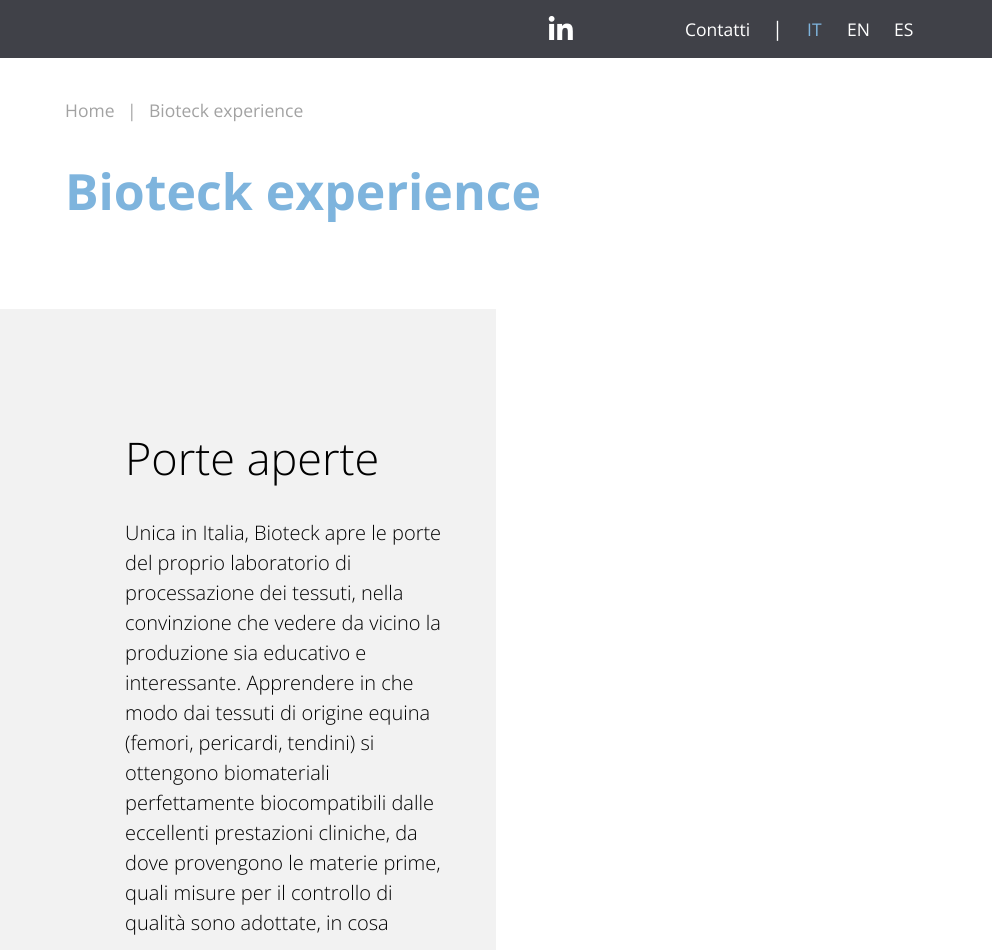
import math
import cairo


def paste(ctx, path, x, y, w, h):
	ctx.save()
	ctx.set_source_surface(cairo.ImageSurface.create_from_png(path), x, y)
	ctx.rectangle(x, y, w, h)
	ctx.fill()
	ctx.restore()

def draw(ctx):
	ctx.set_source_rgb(1, 1, 1)
	ctx.paint()
	ctx.set_source_rgb(0.251, 0.255, 0.282)
	ctx.rectangle(0, 0, 992, 58)
	ctx.fill()
	paste(ctx, 'media/1.png', 548, 16, 25, 24)
	ctx.select_font_face('Open Sans')
	ctx.set_font_size(17.5)
	ctx.set_source_rgb(1, 1, 1)
	ctx.move_to(685, 36)
	ctx.show_text('Contatti')
	ctx.set_font_size(20)
	ctx.move_to(772, 36)
	ctx.show_text('|')
	ctx.set_font_size(17.5)
	ctx.set_source_rgb(0.494, 0.706, 0.867)
	ctx.move_to(807, 36)
	ctx.show_text('IT')
	ctx.set_source_rgb(1, 1, 1)
	ctx.move_to(847, 36)
	ctx.show_text('EN')
	ctx.move_to(894, 36)
	ctx.show_text('ES')
	ctx.set_source_rgb(0.635, 0.635, 0.635)
	for x, y, s in [
		(65, 117, 'Home'),
		(127, 117, '|'),
		(149, 117, 'Bioteck experience'),
	]:
		ctx.move_to(x, y)
		ctx.show_text(s)
	ctx.select_font_face('Open Sans', cairo.FONT_SLANT_NORMAL, cairo.FONT_WEIGHT_BOLD)
	ctx.set_font_size(50)
	ctx.set_source_rgb(0.494, 0.706, 0.867)
	ctx.move_to(65, 210)
	ctx.show_text('Bioteck experience')
	ctx.set_source_rgb(0.949, 0.949, 0.949)
	ctx.rectangle(0, 309, 496, 641)
	ctx.fill()
	ctx.select_font_face('Open Sans Light')
	ctx.set_font_size(45)
	ctx.set_source_rgb(0, 0, 0)
	ctx.move_to(125, 475)
	ctx.show_text('Porte aperte')
	ctx.set_font_size(20)
	for x, y, s in [
		(125, 540, 'Unica in Italia, Bioteck apre le porte'),
		(125, 570, 'del proprio laboratorio di'),
		(125, 600, 'processazione dei tessuti, nella'),
		(125, 630, 'convinzione che vedere da vicino la'),
		(125, 660, 'produzione sia educativo e'),
		(125, 690, 'interessante. Apprendere in che'),
		(125, 720, 'modo dai tessuti di origine equina'),
		(125, 750, '(femori, pericardi, tendini) si'),
		(125, 780, 'ottengono biomateriali'),
		(125, 810, 'perfettamente biocompatibili dalle'),
		(125, 840, 'eccellenti prestazioni cliniche, da'),
		(125, 870, 'dove provengono le materie prime,'),
		(125, 900, 'quali misure per il controllo di'),
		(125, 930, 'qualità sono adottate, in cosa'),
	]:
		ctx.move_to(x, y)
		ctx.show_text(s)


surface = cairo.ImageSurface(cairo.FORMAT_RGB24, 992, 950)
ctx = cairo.Context(surface)
options = cairo.FontOptions()
options.set_hint_metrics(cairo.HINT_METRICS_OFF)
options.set_hint_style(cairo.HINT_STYLE_NONE)
ctx.set_font_options(options)
ctx.set_miter_limit(4)
draw(ctx)
surface.write_to_png('image.png')
